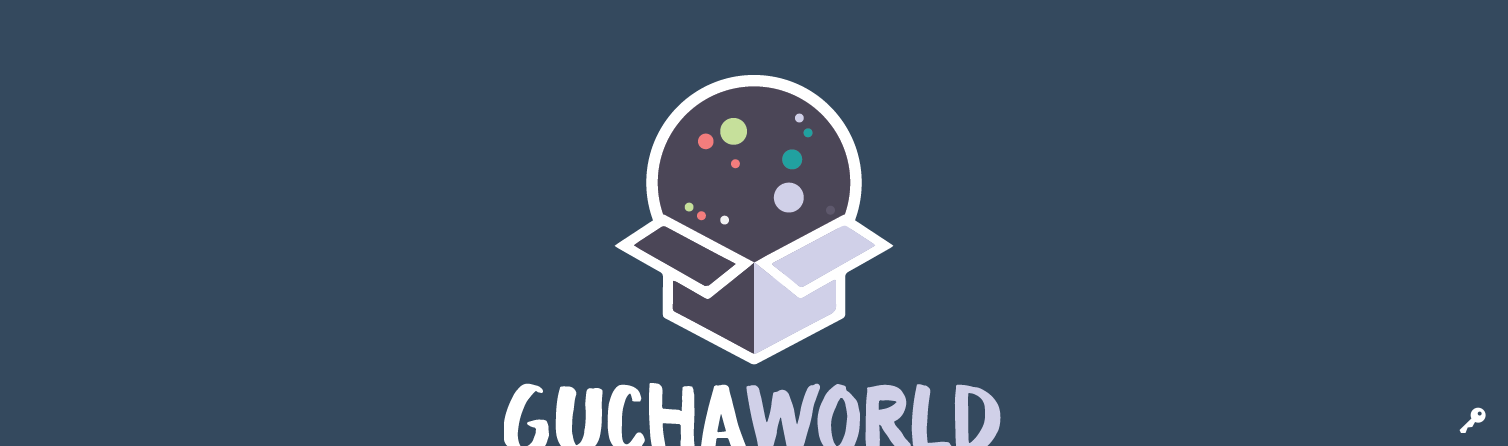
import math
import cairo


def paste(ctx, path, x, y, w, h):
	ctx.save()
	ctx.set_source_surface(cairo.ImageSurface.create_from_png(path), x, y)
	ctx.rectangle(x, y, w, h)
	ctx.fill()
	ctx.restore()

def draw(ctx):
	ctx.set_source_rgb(0.204, 0.286, 0.369)
	ctx.paint()
	paste(ctx, 'media/1.png', 504, 75, 497, 371)
	paste(ctx, 'media/2.png', 1459, 407, 27, 26)


surface = cairo.ImageSurface(cairo.FORMAT_RGB24, 1508, 446)
ctx = cairo.Context(surface)
options = cairo.FontOptions()
options.set_hint_metrics(cairo.HINT_METRICS_OFF)
options.set_hint_style(cairo.HINT_STYLE_NONE)
ctx.set_font_options(options)
ctx.set_miter_limit(4)
draw(ctx)
surface.write_to_png('image.png')
